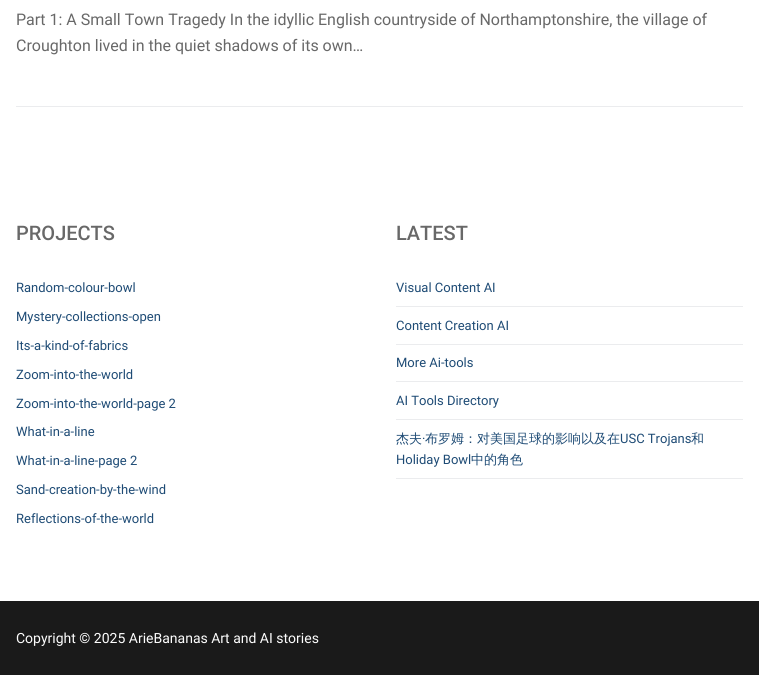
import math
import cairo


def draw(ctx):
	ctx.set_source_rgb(1, 1, 1)
	ctx.paint()
	ctx.set_source_rgb(0.918, 0.925, 0.933)
	ctx.rectangle(16, 106, 727, 1)
	ctx.fill()
	ctx.select_font_face('Roboto')
	ctx.set_font_size(16)
	ctx.set_source_rgb(0.408, 0.408, 0.408)
	ctx.move_to(16, 25)
	ctx.show_text('Part 1: A Small Town Tragedy In the idyllic English countryside of Northamptonshire, the village of')
	ctx.move_to(16, 51)
	ctx.show_text('Croughton lived in the quiet shadows of its own…')
	ctx.select_font_face('Roboto Medium')
	ctx.set_font_size(20)
	ctx.move_to(16, 240)
	ctx.show_text('PROJECTS')
	ctx.select_font_face('Roboto')
	ctx.set_font_size(13)
	ctx.set_source_rgb(0.118, 0.294, 0.459)
	for x, y, s in [
		(16, 292, 'Random-colour-bowl'),
		(16, 321, 'Mystery-collections-open'),
		(16, 350, 'Its-a-kind-of-fabrics'),
		(16, 379, 'Zoom-into-the-world'),
		(16, 408, 'Zoom-into-the-world-page 2'),
		(16, 436, 'What-in-a-line'),
		(16, 465, 'What-in-a-line-page 2'),
		(16, 494, 'Sand-creation-by-the-wind'),
		(16, 523, 'Reflections-of-the-world'),
	]:
		ctx.move_to(x, y)
		ctx.show_text(s)
	ctx.select_font_face('Roboto Medium')
	ctx.set_font_size(20)
	ctx.set_source_rgb(0.408, 0.408, 0.408)
	ctx.move_to(396, 240)
	ctx.show_text('LATEST')
	ctx.set_source_rgb(0.918, 0.925, 0.933)
	ctx.rectangle(396, 306, 347, 1)
	ctx.fill()
	ctx.select_font_face('Roboto')
	ctx.set_font_size(13)
	ctx.set_source_rgb(0.118, 0.294, 0.459)
	ctx.move_to(396, 292)
	ctx.show_text('Visual Content AI')
	ctx.set_source_rgb(0.918, 0.925, 0.933)
	ctx.rectangle(396, 344, 347, 1)
	ctx.fill()
	ctx.set_source_rgb(0.118, 0.294, 0.459)
	ctx.move_to(396, 330)
	ctx.show_text('Content Creation AI')
	ctx.set_source_rgb(0.918, 0.925, 0.933)
	ctx.rectangle(396, 381, 347, 1)
	ctx.fill()
	ctx.set_source_rgb(0.118, 0.294, 0.459)
	ctx.move_to(396, 367)
	ctx.show_text('More Ai-tools')
	ctx.set_source_rgb(0.918, 0.925, 0.933)
	ctx.rectangle(396, 419, 347, 1)
	ctx.fill()
	ctx.set_source_rgb(0.118, 0.294, 0.459)
	ctx.move_to(396, 405)
	ctx.show_text('AI Tools Directory')
	ctx.set_source_rgb(0.918, 0.925, 0.933)
	ctx.rectangle(396, 478, 347, 1)
	ctx.fill()
	ctx.select_font_face('WenQuanYi Zen Hei Medium')
	ctx.set_source_rgb(0.118, 0.294, 0.459)
	ctx.move_to(396, 443)
	ctx.show_text('杰夫')
	ctx.select_font_face('Roboto')
	ctx.move_to(422, 443)
	ctx.show_text('·')
	ctx.select_font_face('WenQuanYi Zen Hei Medium')
	ctx.move_to(425, 443)
	ctx.show_text('布罗姆：对美国足球的影响以及在')
	ctx.select_font_face('Roboto')
	ctx.move_to(620, 443)
	ctx.show_text('USC Trojans')
	ctx.select_font_face('WenQuanYi Zen Hei Medium')
	ctx.move_to(691, 443)
	ctx.show_text('和')
	ctx.select_font_face('Roboto')
	ctx.move_to(396, 464)
	ctx.show_text('Holiday Bowl')
	ctx.select_font_face('WenQuanYi Zen Hei Medium')
	ctx.move_to(471, 464)
	ctx.show_text('中的角色')
	ctx.set_source_rgb(0.102, 0.102, 0.102)
	ctx.rectangle(0, 601, 759, 74)
	ctx.fill()
	ctx.select_font_face('Roboto')
	ctx.set_font_size(14)
	ctx.set_source_rgb(0.992, 0.992, 0.992)
	ctx.move_to(16, 643)
	ctx.show_text('Copyright © 2025 ArieBananas Art and AI stories')


surface = cairo.ImageSurface(cairo.FORMAT_RGB24, 759, 675)
ctx = cairo.Context(surface)
options = cairo.FontOptions()
options.set_hint_metrics(cairo.HINT_METRICS_OFF)
options.set_hint_style(cairo.HINT_STYLE_NONE)
ctx.set_font_options(options)
ctx.set_miter_limit(4)
draw(ctx)
surface.write_to_png('image.png')
